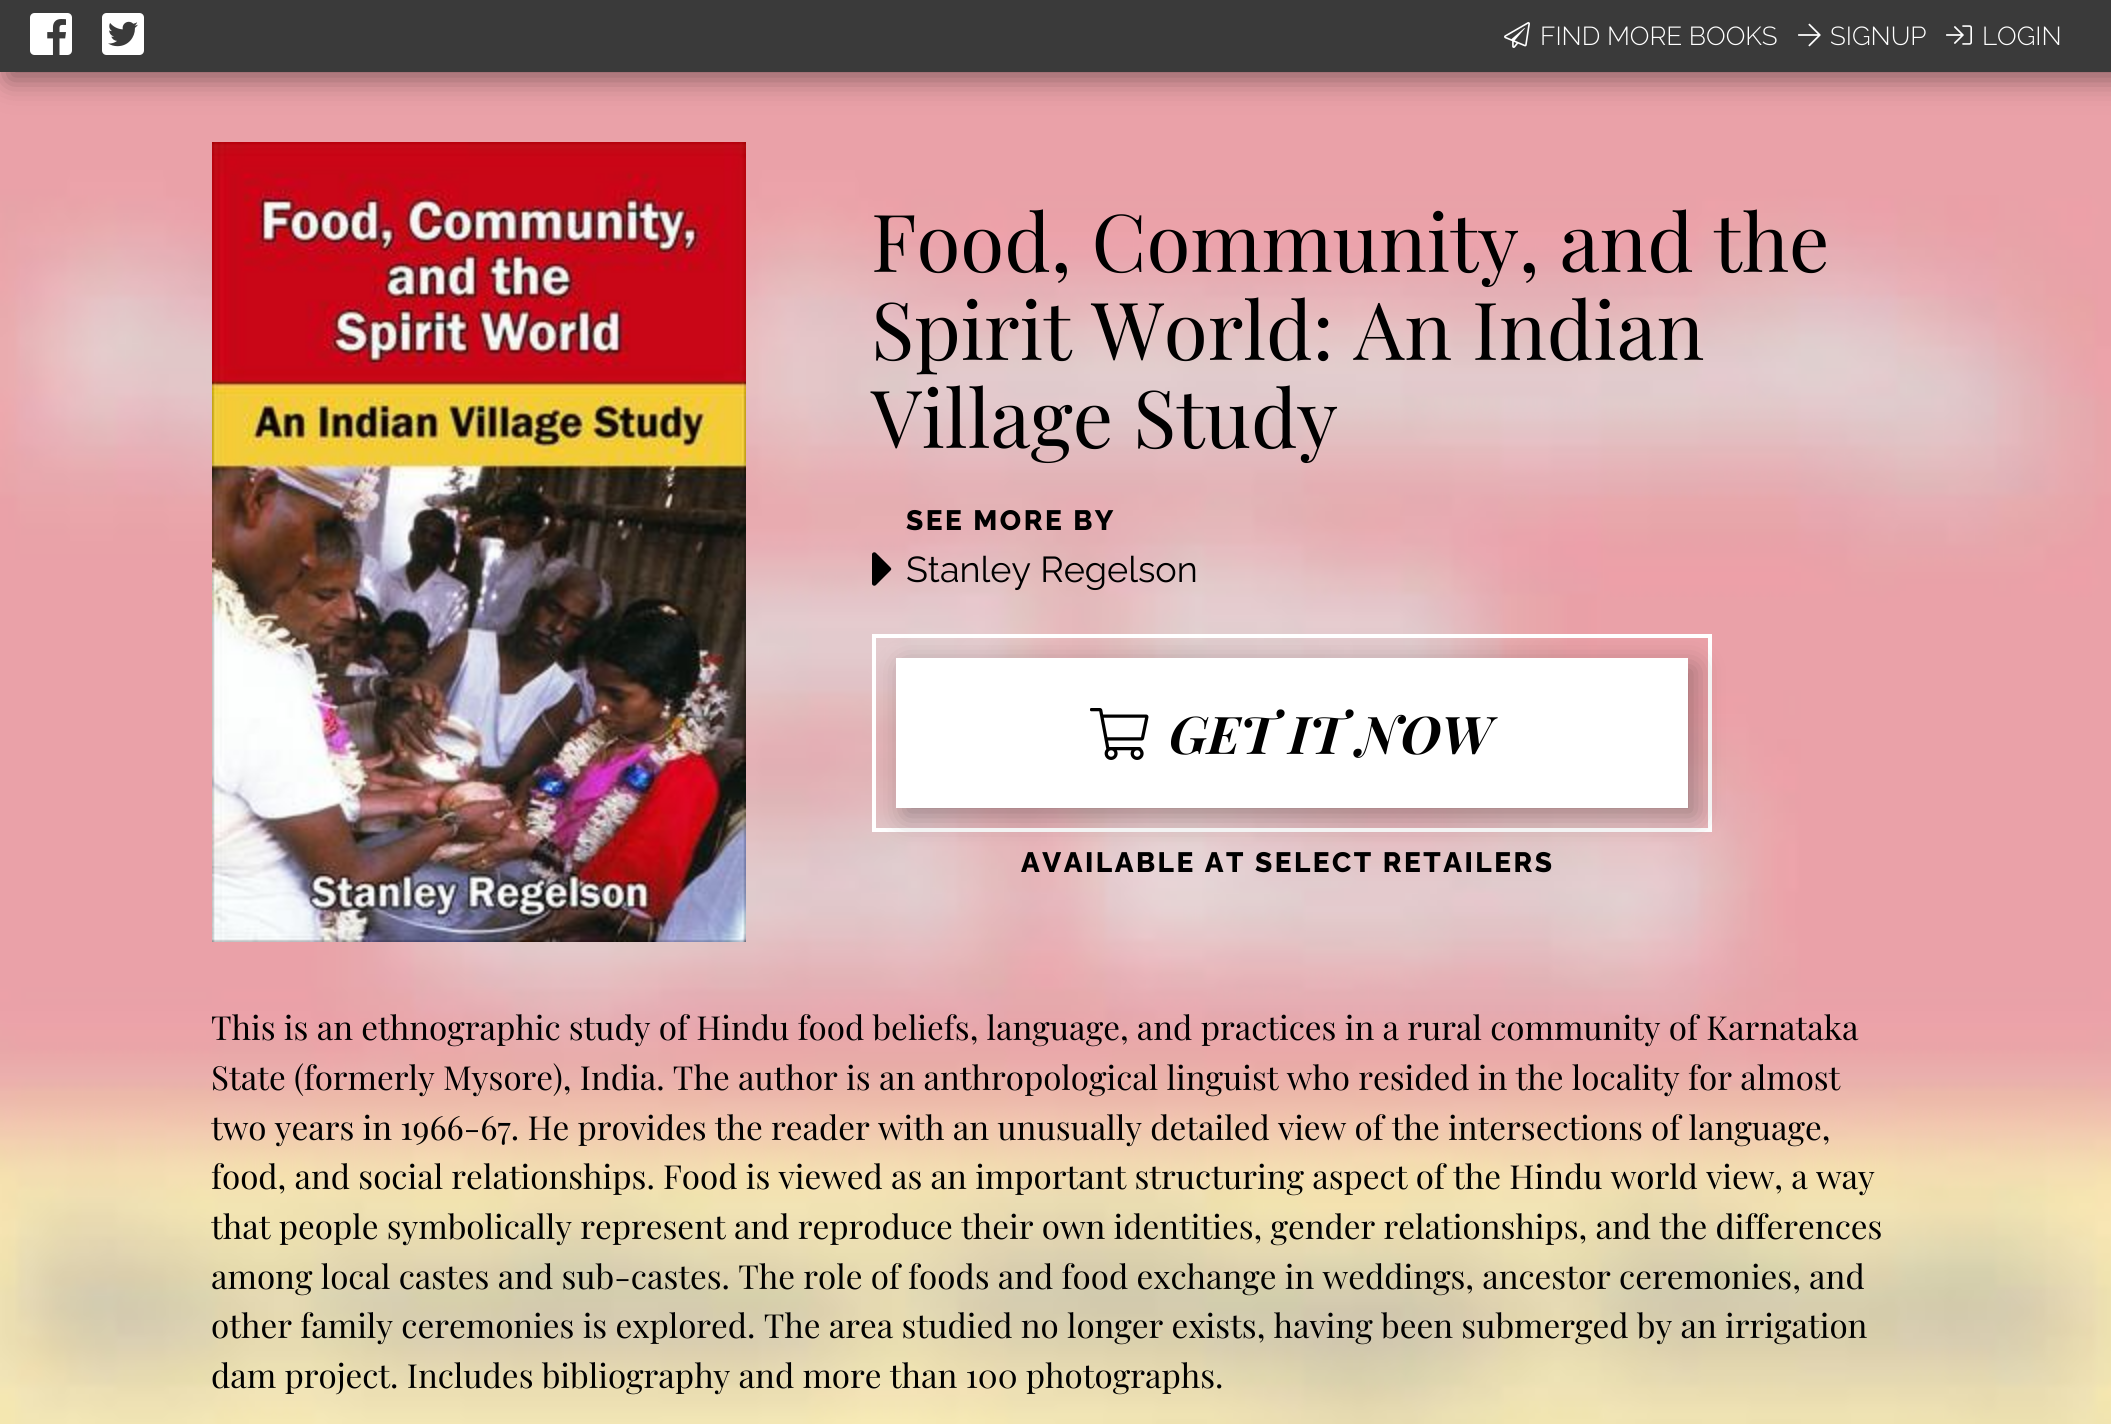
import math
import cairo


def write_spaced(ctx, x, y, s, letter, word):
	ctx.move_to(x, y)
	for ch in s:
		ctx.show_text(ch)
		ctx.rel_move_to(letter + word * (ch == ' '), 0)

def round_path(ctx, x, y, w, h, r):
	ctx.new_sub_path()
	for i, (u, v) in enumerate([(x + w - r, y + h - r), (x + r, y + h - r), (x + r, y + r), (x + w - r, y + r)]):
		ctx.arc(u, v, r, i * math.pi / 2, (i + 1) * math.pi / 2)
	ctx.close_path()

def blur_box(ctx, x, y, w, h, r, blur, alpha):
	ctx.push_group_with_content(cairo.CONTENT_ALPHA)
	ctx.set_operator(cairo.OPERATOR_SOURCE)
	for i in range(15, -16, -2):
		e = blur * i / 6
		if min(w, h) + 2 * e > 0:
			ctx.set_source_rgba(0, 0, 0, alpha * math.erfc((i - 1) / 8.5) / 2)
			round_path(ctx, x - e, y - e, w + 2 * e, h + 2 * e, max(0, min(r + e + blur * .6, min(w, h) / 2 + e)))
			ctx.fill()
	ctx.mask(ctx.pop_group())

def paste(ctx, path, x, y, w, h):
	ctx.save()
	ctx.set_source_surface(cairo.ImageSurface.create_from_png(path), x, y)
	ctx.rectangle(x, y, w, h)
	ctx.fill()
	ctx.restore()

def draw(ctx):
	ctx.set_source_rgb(1, 1, 1)
	ctx.paint()
	paste(ctx, 'media/1.png', 0, 72, 2111, 1352)
	ctx.set_source_rgb(0, 0, 0)
	blur_box(ctx, 8, 8, 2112, 72, 0, 14, 0.4)
	ctx.set_source_rgb(0.227, 0.227, 0.227)
	ctx.rectangle(0, 0, 2111, 72)
	ctx.fill()
	paste(ctx, 'media/2.png', 30, 13, 42, 42)
	paste(ctx, 'media/3.png', 102, 13, 42, 42)
	paste(ctx, 'media/4.png', 1504, 22, 26, 26)
	ctx.select_font_face('Raleway Light')
	ctx.set_font_size(26)
	ctx.set_source_rgb(1, 1, 1)
	ctx.move_to(1540, 45)
	ctx.show_text('FIND MORE BOOKS')
	paste(ctx, 'media/5.png', 1798, 23, 23, 24)
	ctx.move_to(1830, 45)
	ctx.show_text('SIGNUP')
	paste(ctx, 'media/6.png', 1946, 25, 26, 20)
	ctx.move_to(1982, 45)
	ctx.show_text('LOGIN')
	paste(ctx, 'media/7.png', 212, 142, 534, 800)
	ctx.select_font_face('Playfair Display')
	ctx.set_font_size(80)
	ctx.set_source_rgb(0, 0, 0)
	for x, y, s in [
		(871, 272, 'Food, Community, and the'),
		(871, 360, 'Spirit World: An Indian'),
		(871, 448, 'Village Study'),
	]:
		ctx.move_to(x, y)
		ctx.show_text(s)
	ctx.new_path()
	ctx.move_to(872, 583.5)
	ctx.line_to(872, 554.5)
	ctx.curve_to(872, 552.5, 874.5, 551.5, 876, 553)
	ctx.line_to(890.5, 567.5)
	ctx.curve_to(891.5, 568.5, 891.5, 569.5, 890.5, 570.5)
	ctx.line_to(876, 585)
	ctx.curve_to(874.5, 586.5, 872, 585.5, 872, 583.5)
	ctx.close_path()
	ctx.fill()
	ctx.select_font_face('Raleway ExtraBold')
	ctx.set_font_size(28)
	write_spaced(ctx, 906, 530, 'SEE MORE BY', 2.5, 0)
	ctx.select_font_face('Raleway')
	ctx.set_font_size(36)
	ctx.move_to(906, 582)
	ctx.show_text('Stanley Regelson')
	ctx.rectangle(874, 636, 836, 194)
	ctx.set_source_rgb(1, 1, 1)
	ctx.set_line_width(4)
	ctx.stroke()
	ctx.set_source_rgb(0, 0, 0)
	blur_box(ctx, 904, 666, 792, 150, 0, 14, 0.3)
	ctx.set_source_rgb(1, 1, 1)
	ctx.rectangle(896, 658, 792, 150)
	ctx.fill()
	paste(ctx, 'media/8.png', 1090, 708, 59, 52)
	ctx.select_font_face('Playfair Display', cairo.FONT_SLANT_ITALIC, cairo.FONT_WEIGHT_BOLD)
	ctx.set_font_size(52)
	ctx.set_source_rgb(0, 0, 0)
	ctx.move_to(1169, 754)
	ctx.show_text('GET IT NOW')
	ctx.select_font_face('Raleway ExtraBold')
	ctx.set_font_size(28)
	write_spaced(ctx, 1021, 872, 'AVAILABLE AT SELECT RETAILERS', 2.5, 0)
	ctx.select_font_face('Playfair Display')
	ctx.set_font_size(33.15)
	for x, y, s in [
		(211, 1040, 'This is an ethnographic study of Hindu food beliefs, language, and practices in a rural community of Karnataka'),
		(211, 1090, 'State (formerly Mysore), India. The author is an anthropological linguist who resided in the locality for almost'),
		(211, 1140, 'two years in 1966-67. He provides the reader with an unusually detailed view of the intersections of language,'),
		(211, 1189, 'food, and social relationships. Food is viewed as an important structuring aspect of the Hindu world view, a way'),
		(211, 1239, 'that people symbolically represent and reproduce their own identities, gender relationships, and the differences'),
		(211, 1289, 'among local castes and sub-castes. The role of foods and food exchange in weddings, ancestor ceremonies, and'),
		(211, 1338, 'other family ceremonies is explored. The area studied no longer exists, having been submerged by an irrigation'),
		(211, 1388, 'dam project. Includes bibliography and more than 100 photographs.'),
	]:
		ctx.move_to(x, y)
		ctx.show_text(s)


surface = cairo.ImageSurface(cairo.FORMAT_RGB24, 2111, 1424)
ctx = cairo.Context(surface)
options = cairo.FontOptions()
options.set_hint_metrics(cairo.HINT_METRICS_OFF)
options.set_hint_style(cairo.HINT_STYLE_NONE)
ctx.set_font_options(options)
ctx.set_miter_limit(4)
draw(ctx)
surface.write_to_png('image.png')
